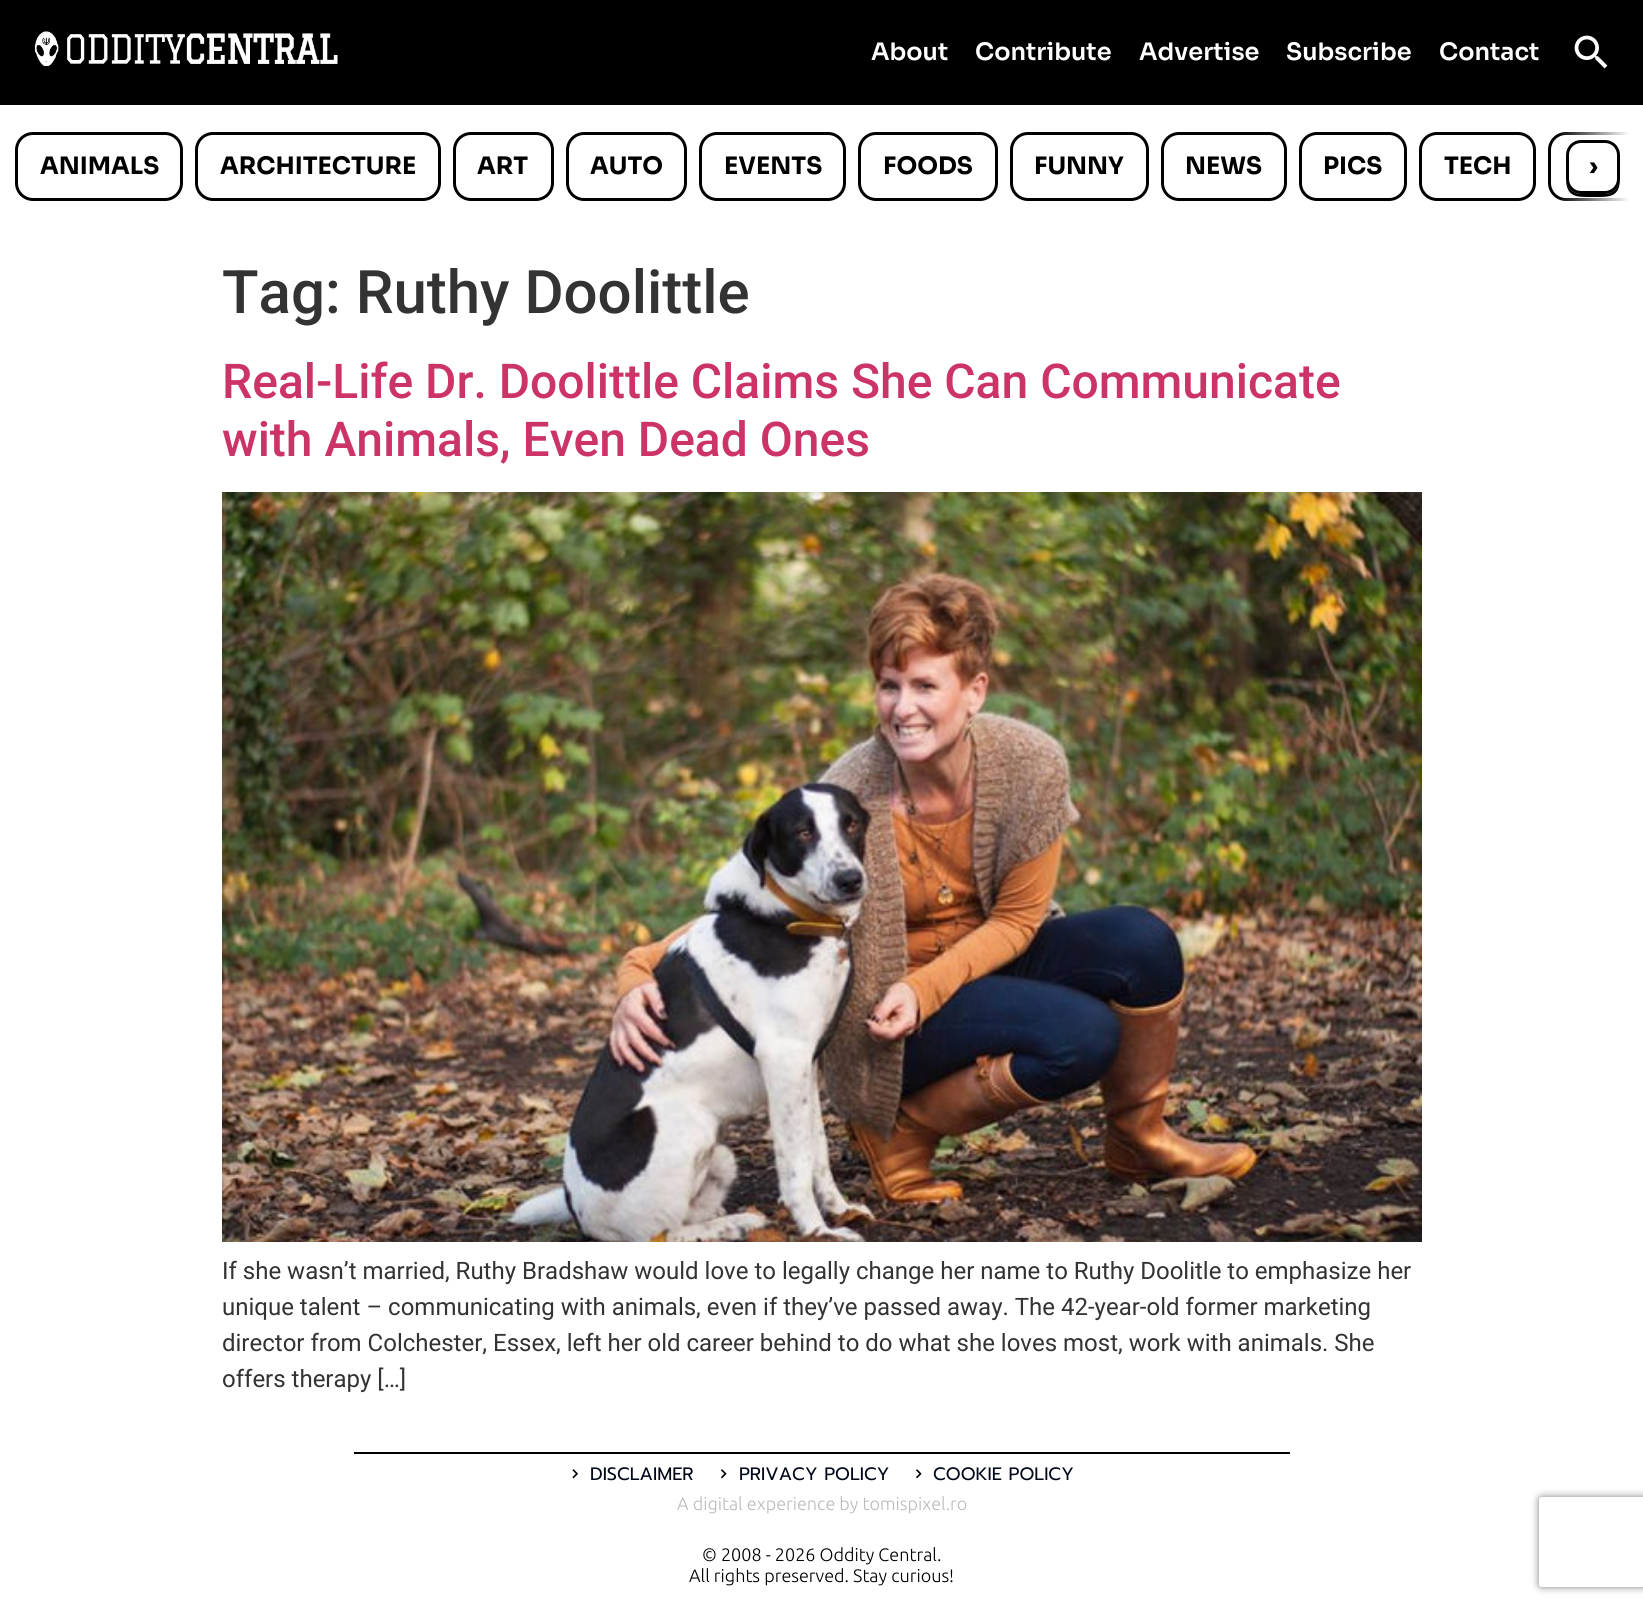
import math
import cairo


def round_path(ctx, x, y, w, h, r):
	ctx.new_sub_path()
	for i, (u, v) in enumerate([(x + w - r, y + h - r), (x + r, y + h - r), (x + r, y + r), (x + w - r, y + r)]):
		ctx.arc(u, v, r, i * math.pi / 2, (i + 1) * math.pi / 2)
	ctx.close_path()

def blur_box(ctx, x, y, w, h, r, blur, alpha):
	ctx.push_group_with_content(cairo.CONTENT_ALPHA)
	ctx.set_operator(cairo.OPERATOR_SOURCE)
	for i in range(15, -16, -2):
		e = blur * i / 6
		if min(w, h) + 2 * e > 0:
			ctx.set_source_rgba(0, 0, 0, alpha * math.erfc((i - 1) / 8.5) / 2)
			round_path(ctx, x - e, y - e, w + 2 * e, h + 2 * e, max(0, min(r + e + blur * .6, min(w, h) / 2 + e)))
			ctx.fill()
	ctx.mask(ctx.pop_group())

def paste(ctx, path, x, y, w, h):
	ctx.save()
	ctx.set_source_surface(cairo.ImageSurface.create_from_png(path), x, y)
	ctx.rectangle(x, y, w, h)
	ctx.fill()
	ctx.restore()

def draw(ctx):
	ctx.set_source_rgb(1, 1, 1)
	ctx.paint()
	ctx.set_source_rgb(0, 0, 0)
	ctx.rectangle(0, 0, 1643, 105)
	ctx.fill()
	paste(ctx, 'media/1.png', 34, 31, 304, 35)
	ctx.select_font_face('Sora SemiBold')
	ctx.set_font_size(24)
	ctx.set_source_rgb(1, 1, 1)
	for x, y, s in [
		(871, 60, 'About'),
		(975, 60, 'Contribute'),
		(1139, 60, 'Advertise'),
		(1286, 60, 'Subscribe'),
		(1439, 60, 'Contact'),
	]:
		ctx.move_to(x, y)
		ctx.show_text(s)
	paste(ctx, 'media/2.png', 1574, 35, 34, 34)
	round_path(ctx, 16.5, 133.5, 165, 66, 16.5)
	ctx.set_source_rgb(0, 0, 0)
	ctx.set_line_width(3)
	ctx.stroke()
	ctx.select_font_face('Sora', cairo.FONT_SLANT_NORMAL, cairo.FONT_WEIGHT_BOLD)
	ctx.move_to(40, 174)
	ctx.show_text('ANIMALS')
	round_path(ctx, 196.5, 133.5, 243, 66, 16.5)
	ctx.stroke()
	ctx.move_to(220, 174)
	ctx.show_text('ARCHITECTURE')
	round_path(ctx, 454.5, 133.5, 98, 66, 16.5)
	ctx.stroke()
	ctx.move_to(477, 174)
	ctx.show_text('ART')
	round_path(ctx, 567.5, 133.5, 118, 66, 16.5)
	ctx.stroke()
	ctx.move_to(590, 174)
	ctx.show_text('AUTO')
	round_path(ctx, 700.5, 133.5, 144, 66, 16.5)
	ctx.stroke()
	ctx.move_to(724, 174)
	ctx.show_text('EVENTS')
	round_path(ctx, 859.5, 133.5, 137, 66, 16.5)
	ctx.stroke()
	ctx.move_to(883, 174)
	ctx.show_text('FOODS')
	round_path(ctx, 1011.5, 133.5, 136, 66, 16.5)
	ctx.stroke()
	ctx.move_to(1034, 174)
	ctx.show_text('FUNNY')
	round_path(ctx, 1162.5, 133.5, 123, 66, 16.5)
	ctx.stroke()
	ctx.move_to(1185, 174)
	ctx.show_text('NEWS')
	round_path(ctx, 1300.5, 133.5, 105, 66, 16.5)
	ctx.stroke()
	ctx.move_to(1323, 174)
	ctx.show_text('PICS')
	round_path(ctx, 1420.5, 133.5, 114, 66, 16.5)
	ctx.stroke()
	ctx.move_to(1444, 174)
	ctx.show_text('TECH')
	ctx.save()
	ctx.rectangle(15, 126, 1614, 81)
	ctx.clip()
	round_path(ctx, 1549.5, 133.5, 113, 66, 16.5)
	ctx.stroke()
	ctx.restore()
	gradient = cairo.LinearGradient(1629, 166, 1557, 166)
	gradient.add_color_stop_rgba(0, 1, 1, 1, 1)
	gradient.add_color_stop_rgba(1, 1, 1, 1, 0)
	ctx.set_source(gradient)
	ctx.rectangle(1559, 132, 70, 69)
	ctx.fill()
	ctx.set_source_rgb(0, 0, 0)
	ctx.new_path()
	ctx.move_to(1566, 178)
	ctx.curve_to(1566, 198, 1577, 197, 1593, 197)
	ctx.curve_to(1609, 197, 1620, 198, 1620, 178)
	ctx.curve_to(1620, 187, 1613, 194, 1605, 194)
	ctx.line_to(1581, 194)
	ctx.curve_to(1573, 194, 1566, 187, 1566, 178)
	ctx.close_path()
	ctx.fill()
	ctx.set_source_rgb(1, 1, 1)
	round_path(ctx, 1567.5, 141.5, 51, 51, 13.5)
	ctx.fill_preserve()
	ctx.set_source_rgb(0, 0, 0)
	ctx.stroke()
	ctx.move_to(1589, 174)
	ctx.show_text('›')
	ctx.select_font_face('Roboto Medium')
	ctx.set_font_size(60)
	ctx.set_source_rgb(0.2, 0.2, 0.2)
	ctx.move_to(222, 313)
	ctx.show_text('Tag: Ruthy Doolittle')
	ctx.set_font_size(48)
	ctx.set_source_rgb(0.8, 0.2, 0.4)
	ctx.move_to(222, 398)
	ctx.show_text('Real-Life Dr. Doolittle Claims She Can Communicate')
	ctx.move_to(222, 456)
	ctx.show_text('with Animals, Even Dead Ones')
	paste(ctx, 'media/3.png', 222, 492, 1200, 750)
	ctx.select_font_face('Roboto')
	ctx.set_font_size(24)
	ctx.set_source_rgb(0.2, 0.2, 0.2)
	for x, y, s in [
		(222, 1279, 'If she wasn’t married, Ruthy Bradshaw would love to legally change her name to Ruthy Doolitle to emphasize her'),
		(222, 1315, 'unique talent – communicating with animals, even if they’ve passed away. The 42-year-old former marketing'),
		(222, 1351, 'director from Colchester, Essex, left her old career behind to do what she loves most, work with animals. She'),
		(222, 1387, 'offers therapy […]'),
	]:
		ctx.move_to(x, y)
		ctx.show_text(s)
	ctx.set_source_rgb(0, 0, 0)
	ctx.rectangle(354, 1452, 936, 2)
	ctx.fill()
	paste(ctx, 'media/4.png', 572, 1469, 6, 10)
	ctx.select_font_face('Prompt')
	ctx.set_font_size(18)
	ctx.set_source_rgb(0, 0.031, 0.094)
	ctx.move_to(590, 1480)
	ctx.show_text('DISCLAIMER')
	paste(ctx, 'media/5.png', 721, 1469, 6, 10)
	ctx.move_to(739, 1480)
	ctx.show_text('PRIVACY POLICY')
	paste(ctx, 'media/5.png', 916, 1469, 6, 10)
	ctx.move_to(933, 1480)
	ctx.show_text('COOKIE POLICY')
	ctx.select_font_face('Ubuntu Light')
	ctx.set_source_rgb(0.733, 0.733, 0.733)
	ctx.move_to(677, 1510)
	ctx.show_text('A digital experience by tomispixel.ro')
	ctx.set_source_rgb(0, 0, 0)
	ctx.move_to(702, 1561)
	ctx.show_text('© 2008 - 2026 Oddity Central.')
	ctx.move_to(689, 1582)
	ctx.show_text('All rights preserved. Stay curious!')
	ctx.save()
	ctx.set_fill_rule(cairo.FILL_RULE_EVEN_ODD)
	ctx.new_path()
	ctx.move_to(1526, 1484)
	ctx.line_to(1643, 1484)
	ctx.line_to(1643, 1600)
	ctx.line_to(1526, 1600)
	ctx.close_path()
	ctx.move_to(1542, 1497)
	ctx.line_to(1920, 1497)
	ctx.curve_to(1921.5, 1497, 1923, 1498.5, 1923, 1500)
	ctx.line_to(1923, 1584)
	ctx.curve_to(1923, 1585.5, 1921.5, 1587, 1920, 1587)
	ctx.line_to(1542, 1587)
	ctx.curve_to(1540.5, 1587, 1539, 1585.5, 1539, 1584)
	ctx.line_to(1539, 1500)
	ctx.curve_to(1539, 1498.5, 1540.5, 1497, 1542, 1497)
	ctx.close_path()
	ctx.clip()
	ctx.set_source_rgb(0.502, 0.502, 0.502)
	blur_box(ctx, 1539, 1497, 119, 90, 3, 4, 1)
	ctx.restore()


surface = cairo.ImageSurface(cairo.FORMAT_RGB24, 1643, 1608)
ctx = cairo.Context(surface)
options = cairo.FontOptions()
options.set_hint_metrics(cairo.HINT_METRICS_OFF)
options.set_hint_style(cairo.HINT_STYLE_NONE)
ctx.set_font_options(options)
ctx.set_miter_limit(4)
draw(ctx)
surface.write_to_png('image.png')
